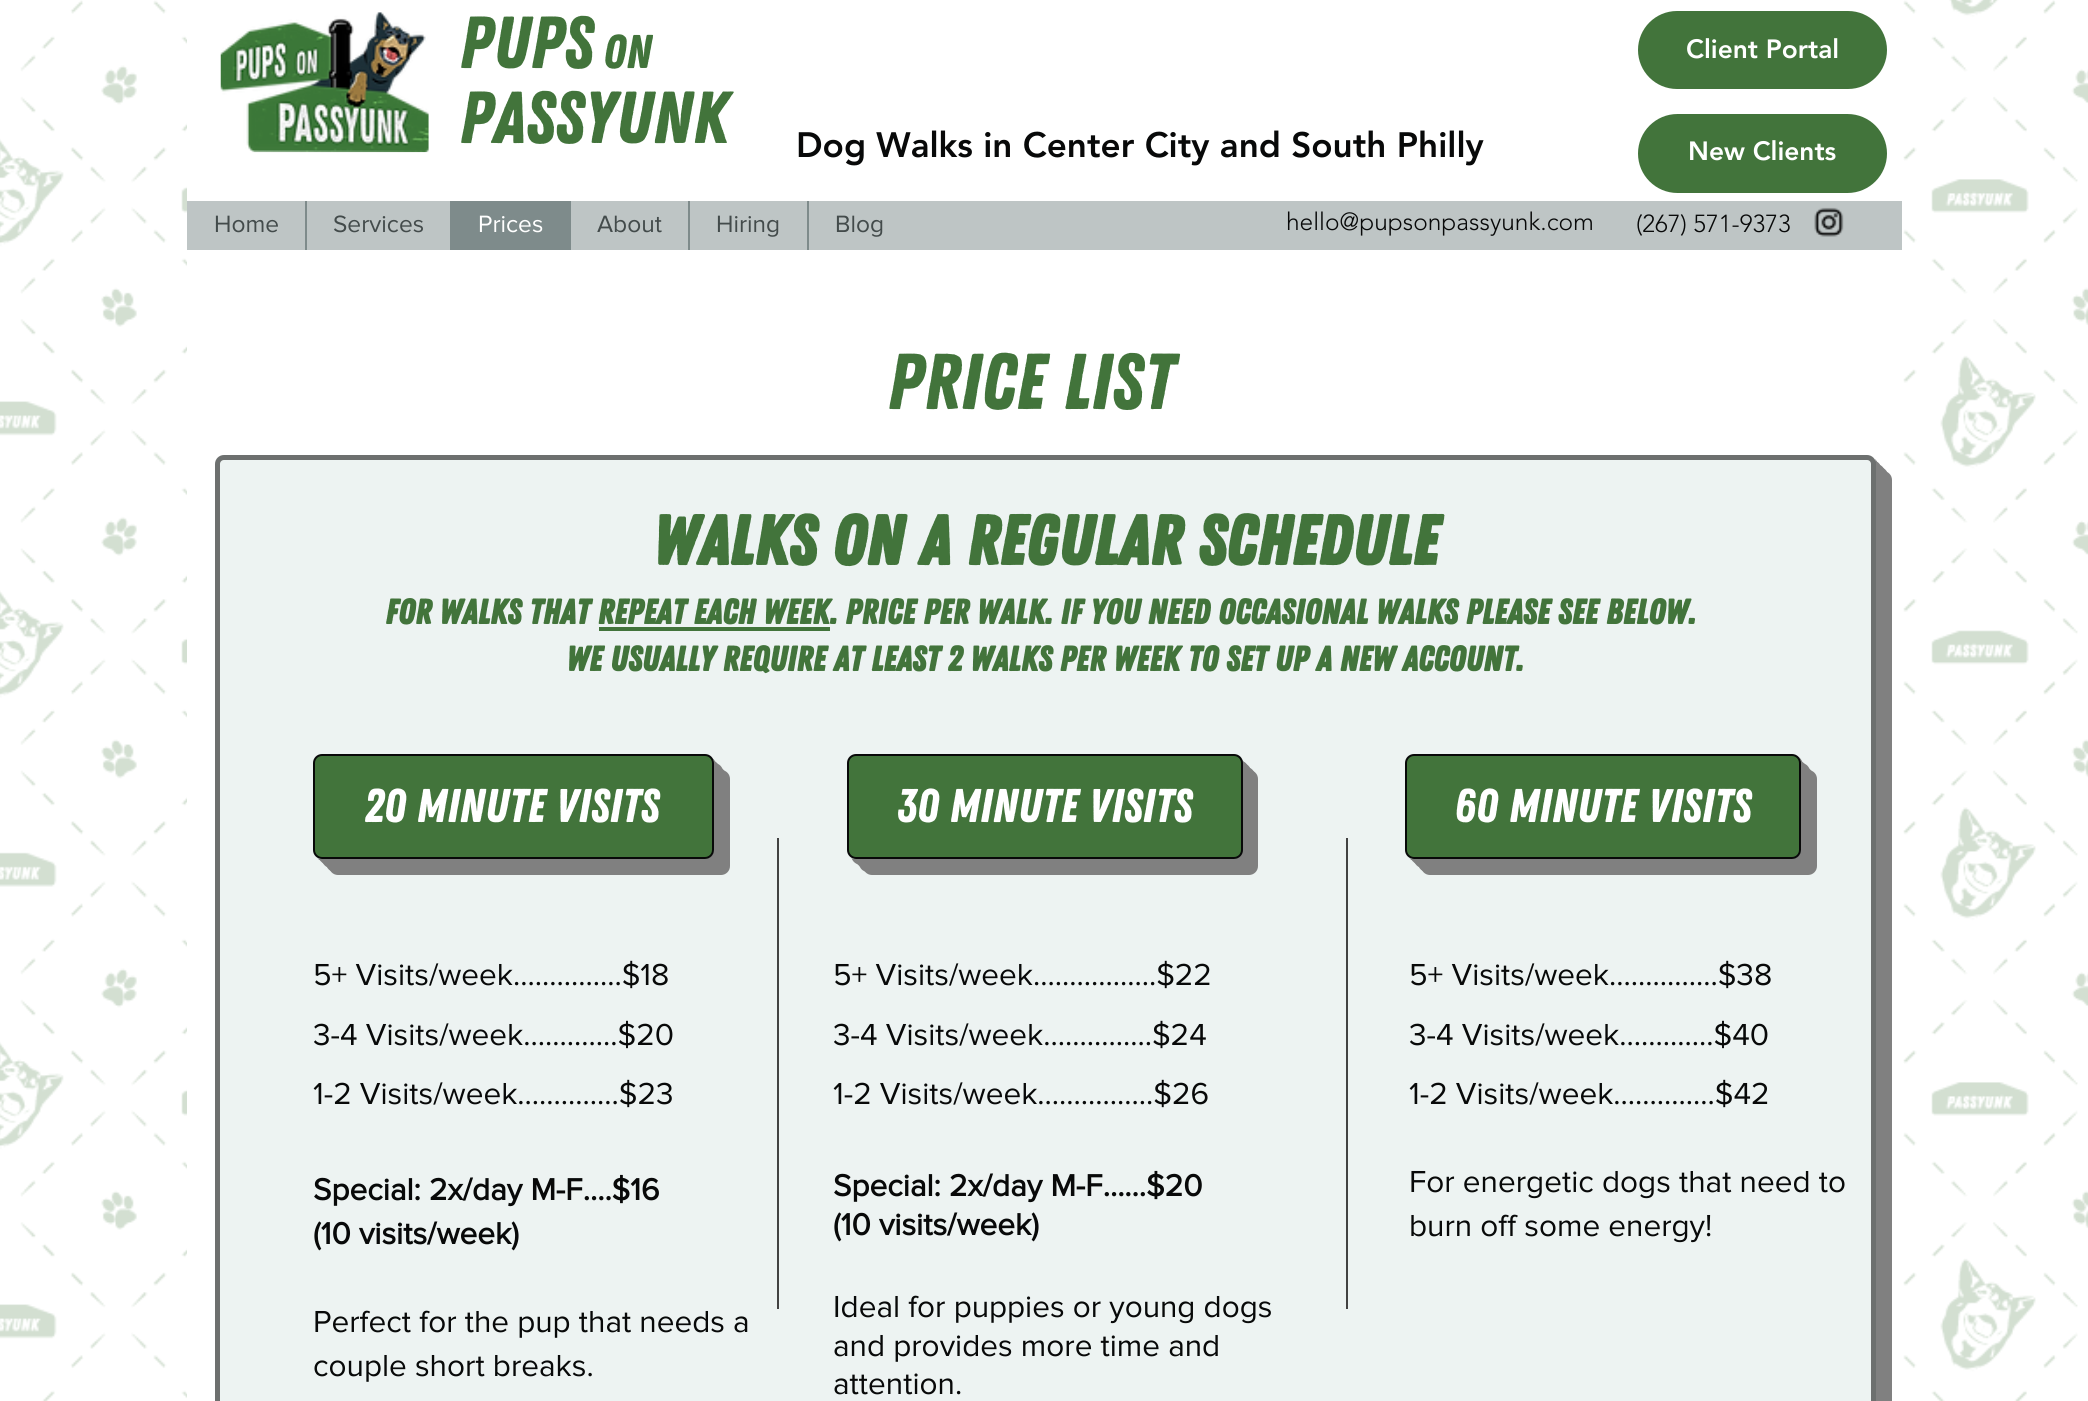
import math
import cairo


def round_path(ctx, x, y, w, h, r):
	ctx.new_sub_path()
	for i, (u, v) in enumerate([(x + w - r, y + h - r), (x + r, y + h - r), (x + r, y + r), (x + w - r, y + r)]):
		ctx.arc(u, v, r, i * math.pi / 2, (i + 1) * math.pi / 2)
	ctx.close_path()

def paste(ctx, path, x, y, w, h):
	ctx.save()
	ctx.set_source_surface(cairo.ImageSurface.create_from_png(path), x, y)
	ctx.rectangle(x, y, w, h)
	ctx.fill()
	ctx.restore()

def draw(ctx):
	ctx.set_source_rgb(1, 1, 1)
	ctx.paint()
	paste(ctx, 'media/1.png', 0, 0, 2088, 1401)
	ctx.set_source_rgb(1, 1, 1)
	ctx.rectangle(187, 0, 1711, 271)
	ctx.fill()
	paste(ctx, 'media/2.png', 220, 12, 209, 141)
	ctx.select_font_face('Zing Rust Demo')
	ctx.set_font_size(73.5)
	ctx.set_source_rgb(0.259, 0.455, 0.231)
	ctx.move_to(459, 68)
	ctx.show_text('Pups')
	ctx.set_font_size(47.25)
	ctx.move_to(603, 68)
	ctx.show_text('On')
	ctx.set_font_size(73.5)
	ctx.move_to(459, 143)
	ctx.show_text('Passyunk')
	round_path(ctx, 1638, 11, 249, 78, 39)
	ctx.fill()
	ctx.select_font_face('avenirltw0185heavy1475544 Black')
	ctx.set_font_size(26.25)
	ctx.set_source_rgb(1, 1, 1)
	ctx.move_to(1686, 58)
	ctx.show_text('Client Portal')
	ctx.set_font_size(35)
	ctx.set_source_rgb(0.035, 0.039, 0.039)
	ctx.move_to(796, 157)
	ctx.show_text('Dog Walks in Center City and South Philly')
	ctx.set_source_rgb(0.259, 0.455, 0.231)
	round_path(ctx, 1638, 114, 249, 79, 39.5)
	ctx.fill()
	ctx.set_font_size(26.25)
	ctx.set_source_rgb(1, 1, 1)
	ctx.move_to(1688, 160)
	ctx.show_text('New Clients')
	ctx.set_source_rgb(0.745, 0.773, 0.773)
	ctx.rectangle(187, 201, 1715, 49)
	ctx.fill()
	ctx.select_font_face('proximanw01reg')
	ctx.set_font_size(24.5)
	ctx.set_source_rgb(0.263, 0.294, 0.294)
	ctx.move_to(214, 232)
	ctx.show_text('Home')
	ctx.set_source_rgb(0.494, 0.545, 0.545)
	ctx.rectangle(305, 201, 2, 49)
	ctx.fill()
	ctx.set_source_rgb(0.263, 0.294, 0.294)
	ctx.move_to(333, 232)
	ctx.show_text('Services')
	ctx.set_source_rgb(0.494, 0.545, 0.545)
	ctx.rectangle(450, 201, 121, 49)
	ctx.fill()
	ctx.set_source_rgb(1, 1, 1)
	ctx.move_to(478, 232)
	ctx.show_text('Prices')
	ctx.set_source_rgb(0.263, 0.294, 0.294)
	ctx.move_to(597, 232)
	ctx.show_text('About')
	ctx.set_source_rgb(0.494, 0.545, 0.545)
	ctx.rectangle(688, 201, 2, 49)
	ctx.fill()
	ctx.set_source_rgb(0.263, 0.294, 0.294)
	ctx.move_to(716, 232)
	ctx.show_text('Hiring')
	ctx.set_source_rgb(0.494, 0.545, 0.545)
	ctx.rectangle(807, 201, 2, 49)
	ctx.fill()
	ctx.set_source_rgb(0.263, 0.294, 0.294)
	ctx.move_to(835, 232)
	ctx.show_text('Blog')
	ctx.select_font_face('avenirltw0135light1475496 Light')
	ctx.set_source_rgb(0.035, 0.039, 0.039)
	ctx.move_to(1286, 230)
	ctx.show_text('hello@pupsonpassyunk.com')
	ctx.move_to(1636, 232)
	ctx.show_text('(267) 571-9373')
	paste(ctx, 'media/3.png', 1814, 207, 30, 30)
	ctx.set_source_rgb(1, 1, 1)
	ctx.rectangle(187, 277, 1711, 1124)
	ctx.fill()
	ctx.select_font_face('Zing Rust Demo')
	ctx.set_font_size(79)
	ctx.set_source_rgb(0.259, 0.455, 0.231)
	ctx.move_to(887, 409)
	ctx.show_text('Price list')
	ctx.set_source_rgb(0.502, 0.502, 0.502)
	ctx.new_path()
	ctx.move_to(231, 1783)
	ctx.line_to(231, 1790)
	ctx.curve_to(231, 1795, 235, 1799, 240, 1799)
	ctx.line_to(1883, 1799)
	ctx.curve_to(1888, 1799, 1892, 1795, 1892, 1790)
	ctx.line_to(1892, 480)
	ctx.curve_to(1892, 475, 1888, 471, 1883, 471)
	ctx.line_to(1876, 471)
	ctx.line_to(1876, 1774)
	ctx.curve_to(1876, 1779, 1872, 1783, 1867, 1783)
	ctx.close_path()
	ctx.fill()
	ctx.new_path()
	ctx.move_to(228, 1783)
	ctx.line_to(228, 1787)
	ctx.curve_to(228, 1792, 232, 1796, 237, 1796)
	ctx.line_to(1879, 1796)
	ctx.curve_to(1884, 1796, 1888, 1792, 1888, 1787)
	ctx.line_to(1888, 476)
	ctx.curve_to(1888, 471, 1884, 467, 1879, 467)
	ctx.line_to(1876, 467)
	ctx.line_to(1876, 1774)
	ctx.curve_to(1876, 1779, 1872, 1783, 1867, 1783)
	ctx.close_path()
	ctx.fill()
	ctx.new_path()
	ctx.move_to(224, 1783)
	ctx.curve_to(224, 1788, 228, 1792, 233, 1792)
	ctx.line_to(1876, 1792)
	ctx.curve_to(1881, 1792, 1885, 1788, 1885, 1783)
	ctx.line_to(1885, 473)
	ctx.curve_to(1885, 468, 1881, 464, 1876, 464)
	ctx.line_to(1876, 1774)
	ctx.curve_to(1876, 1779, 1872, 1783, 1867, 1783)
	ctx.close_path()
	ctx.fill()
	ctx.new_path()
	ctx.move_to(221, 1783)
	ctx.curve_to(223, 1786, 226, 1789, 230, 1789)
	ctx.line_to(1872, 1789)
	ctx.curve_to(1877, 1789, 1881, 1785, 1881, 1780)
	ctx.line_to(1881, 469)
	ctx.curve_to(1881, 465, 1879, 462, 1875, 461)
	ctx.line_to(1876, 464)
	ctx.line_to(1876, 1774)
	ctx.curve_to(1876, 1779, 1872, 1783, 1867, 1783)
	ctx.line_to(224, 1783)
	ctx.close_path()
	ctx.fill()
	ctx.new_path()
	ctx.move_to(219, 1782)
	ctx.curve_to(221, 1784, 223, 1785, 226, 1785)
	ctx.line_to(1869, 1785)
	ctx.curve_to(1874, 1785, 1878, 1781, 1878, 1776)
	ctx.line_to(1878, 466)
	ctx.curve_to(1878, 463, 1877, 461, 1875, 459)
	ctx.curve_to(1875, 460, 1876, 462, 1876, 464)
	ctx.line_to(1876, 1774)
	ctx.curve_to(1876, 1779, 1872, 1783, 1867, 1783)
	ctx.line_to(224, 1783)
	ctx.curve_to(222, 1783, 220, 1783, 219, 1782)
	ctx.close_path()
	ctx.fill()
	ctx.set_source_rgba(0.867, 0.91, 0.906, 0.5)
	round_path(ctx, 215, 455, 1661, 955, 9)
	ctx.fill()
	round_path(ctx, 217.5, 457.5, 1656, 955, 6.5)
	ctx.set_source_rgba(0.035, 0.039, 0.039, 0.56)
	ctx.set_line_width(5)
	ctx.stroke()
	ctx.select_font_face('Zing Rust Demo', cairo.FONT_SLANT_NORMAL, cairo.FONT_WEIGHT_BOLD)
	ctx.set_font_size(70)
	ctx.set_source_rgb(0.259, 0.455, 0.231)
	ctx.move_to(652, 565)
	ctx.show_text('Walks On A Regular Schedule')
	ctx.set_font_size(35)
	ctx.move_to(385, 624)
	ctx.show_text('For walks that repeat each week. Price Per Walk. If you need occasional Walks Please See below.')
	ctx.rectangle(599, 627, 231, 4)
	ctx.fill()
	ctx.move_to(566, 671)
	ctx.show_text('we usually require at least 2 walks per week to set up a new account.')
	ctx.set_source_rgb(0.502, 0.502, 0.502)
	ctx.new_path()
	ctx.move_to(329, 859)
	ctx.line_to(329, 866)
	ctx.curve_to(329, 871, 333, 875, 338, 875)
	ctx.line_to(721, 875)
	ctx.curve_to(726, 875, 730, 871, 730, 866)
	ctx.line_to(730, 779)
	ctx.curve_to(730, 774, 726, 770, 721, 770)
	ctx.line_to(714, 770)
	ctx.line_to(714, 850)
	ctx.curve_to(714, 855, 710, 859, 705, 859)
	ctx.close_path()
	ctx.fill()
	ctx.new_path()
	ctx.move_to(326, 859)
	ctx.line_to(326, 863)
	ctx.curve_to(326, 868, 330, 872, 335, 872)
	ctx.line_to(717, 872)
	ctx.curve_to(722, 872, 726, 868, 726, 863)
	ctx.line_to(726, 776)
	ctx.curve_to(726, 771, 722, 767, 717, 767)
	ctx.line_to(714, 767)
	ctx.line_to(714, 850)
	ctx.curve_to(714, 855, 710, 859, 705, 859)
	ctx.close_path()
	ctx.fill()
	ctx.new_path()
	ctx.move_to(322, 859)
	ctx.curve_to(322, 864, 326, 868, 331, 868)
	ctx.line_to(714, 868)
	ctx.curve_to(719, 868, 723, 864, 723, 859)
	ctx.line_to(723, 772)
	ctx.curve_to(723, 767, 719, 763, 714, 763)
	ctx.line_to(714, 850)
	ctx.curve_to(714, 855, 710, 859, 705, 859)
	ctx.close_path()
	ctx.fill()
	ctx.new_path()
	ctx.move_to(319, 859)
	ctx.curve_to(321, 862, 324, 865, 328, 865)
	ctx.line_to(710, 865)
	ctx.curve_to(715, 865, 719, 861, 719, 856)
	ctx.line_to(719, 769)
	ctx.curve_to(719, 765, 717, 762, 714, 761)
	ctx.line_to(714, 850)
	ctx.curve_to(714, 855, 710, 859, 705, 859)
	ctx.line_to(322, 859)
	ctx.close_path()
	ctx.fill()
	ctx.new_path()
	ctx.move_to(317, 858)
	ctx.curve_to(319, 860, 321, 861, 324, 861)
	ctx.line_to(707, 861)
	ctx.curve_to(712, 861, 716, 857, 716, 852)
	ctx.line_to(716, 765)
	ctx.curve_to(716, 762, 714, 759, 712, 758)
	ctx.curve_to(713, 759, 714, 761, 714, 763)
	ctx.line_to(714, 850)
	ctx.curve_to(714, 855, 710, 859, 705, 859)
	ctx.line_to(322, 859)
	ctx.curve_to(320, 859, 318, 859, 317, 858)
	ctx.close_path()
	ctx.fill()
	ctx.set_source_rgb(0.259, 0.455, 0.231)
	round_path(ctx, 314, 755, 399, 103, 8)
	ctx.fill_preserve()
	ctx.set_source_rgb(0.035, 0.039, 0.039)
	ctx.set_line_width(2)
	ctx.stroke()
	ctx.select_font_face('Zing Rust Demo')
	ctx.set_font_size(47.25)
	ctx.set_source_rgb(1, 1, 1)
	ctx.move_to(364, 822)
	ctx.show_text('20 Minute Visits')
	ctx.set_source_rgb(0.502, 0.502, 0.502)
	ctx.new_path()
	ctx.move_to(863, 859)
	ctx.line_to(863, 866)
	ctx.curve_to(863, 871, 867, 875, 872, 875)
	ctx.line_to(1249, 875)
	ctx.curve_to(1254, 875, 1258, 871, 1258, 866)
	ctx.line_to(1258, 779)
	ctx.curve_to(1258, 774, 1254, 770, 1249, 770)
	ctx.line_to(1242, 770)
	ctx.line_to(1242, 850)
	ctx.curve_to(1242, 855, 1239, 859, 1234, 859)
	ctx.close_path()
	ctx.fill()
	ctx.new_path()
	ctx.move_to(859, 859)
	ctx.line_to(859, 863)
	ctx.curve_to(859, 868, 863, 872, 868, 872)
	ctx.line_to(1246, 872)
	ctx.curve_to(1251, 872, 1255, 868, 1255, 863)
	ctx.line_to(1255, 776)
	ctx.curve_to(1255, 771, 1251, 767, 1246, 767)
	ctx.line_to(1242, 767)
	ctx.line_to(1242, 850)
	ctx.curve_to(1242, 855, 1239, 859, 1234, 859)
	ctx.close_path()
	ctx.fill()
	ctx.new_path()
	ctx.move_to(856, 859)
	ctx.curve_to(856, 864, 860, 868, 865, 868)
	ctx.line_to(1242, 868)
	ctx.curve_to(1247, 868, 1251, 864, 1251, 859)
	ctx.line_to(1251, 772)
	ctx.curve_to(1251, 767, 1247, 763, 1242, 763)
	ctx.line_to(1242, 850)
	ctx.curve_to(1242, 855, 1239, 859, 1234, 859)
	ctx.close_path()
	ctx.fill()
	ctx.new_path()
	ctx.move_to(852, 859)
	ctx.curve_to(853, 862, 857, 865, 861, 865)
	ctx.line_to(1239, 865)
	ctx.curve_to(1244, 865, 1248, 861, 1248, 856)
	ctx.line_to(1248, 769)
	ctx.curve_to(1248, 765, 1246, 762, 1242, 761)
	ctx.line_to(1242, 850)
	ctx.curve_to(1242, 855, 1239, 859, 1234, 859)
	ctx.line_to(856, 859)
	ctx.close_path()
	ctx.fill()
	ctx.new_path()
	ctx.move_to(851, 858)
	ctx.curve_to(853, 860, 855, 861, 858, 861)
	ctx.line_to(1235, 861)
	ctx.curve_to(1240, 861, 1244, 857, 1244, 852)
	ctx.line_to(1244, 765)
	ctx.curve_to(1244, 762, 1243, 760, 1241, 759)
	ctx.curve_to(1242, 760, 1242, 761, 1242, 763)
	ctx.line_to(1242, 850)
	ctx.curve_to(1242, 855, 1239, 859, 1234, 859)
	ctx.line_to(856, 859)
	ctx.curve_to(854, 859, 853, 859, 851, 858)
	ctx.close_path()
	ctx.fill()
	ctx.set_source_rgb(0.259, 0.455, 0.231)
	round_path(ctx, 848, 755, 394, 103, 8)
	ctx.fill_preserve()
	ctx.set_source_rgb(0.035, 0.039, 0.039)
	ctx.stroke()
	ctx.set_source_rgb(1, 1, 1)
	ctx.move_to(897, 822)
	ctx.show_text('30 Minute Visits')
	ctx.set_source_rgb(0.502, 0.502, 0.502)
	ctx.new_path()
	ctx.move_to(1421, 859)
	ctx.line_to(1421, 866)
	ctx.curve_to(1421, 871, 1425, 875, 1430, 875)
	ctx.line_to(1808, 875)
	ctx.curve_to(1813, 875, 1817, 871, 1817, 866)
	ctx.line_to(1817, 779)
	ctx.curve_to(1817, 774, 1813, 770, 1808, 770)
	ctx.line_to(1801, 770)
	ctx.line_to(1801, 850)
	ctx.curve_to(1801, 855, 1797, 859, 1792, 859)
	ctx.close_path()
	ctx.fill()
	ctx.new_path()
	ctx.move_to(1418, 859)
	ctx.line_to(1418, 863)
	ctx.curve_to(1418, 868, 1422, 872, 1427, 872)
	ctx.line_to(1804, 872)
	ctx.curve_to(1809, 872, 1813, 868, 1813, 863)
	ctx.line_to(1813, 776)
	ctx.curve_to(1813, 771, 1809, 767, 1804, 767)
	ctx.line_to(1801, 767)
	ctx.line_to(1801, 850)
	ctx.curve_to(1801, 855, 1797, 859, 1792, 859)
	ctx.close_path()
	ctx.fill()
	ctx.new_path()
	ctx.move_to(1414, 859)
	ctx.curve_to(1414, 864, 1418, 868, 1423, 868)
	ctx.line_to(1801, 868)
	ctx.curve_to(1806, 868, 1810, 864, 1810, 859)
	ctx.line_to(1810, 772)
	ctx.curve_to(1810, 767, 1806, 763, 1801, 763)
	ctx.line_to(1801, 850)
	ctx.curve_to(1801, 855, 1797, 859, 1792, 859)
	ctx.close_path()
	ctx.fill()
	ctx.new_path()
	ctx.move_to(1411, 859)
	ctx.curve_to(1413, 862, 1416, 865, 1420, 865)
	ctx.line_to(1797, 865)
	ctx.curve_to(1802, 865, 1806, 861, 1806, 856)
	ctx.line_to(1806, 769)
	ctx.curve_to(1806, 765, 1804, 762, 1800, 761)
	ctx.line_to(1801, 850)
	ctx.curve_to(1801, 855, 1797, 859, 1792, 859)
	ctx.line_to(1414, 859)
	ctx.close_path()
	ctx.fill()
	ctx.new_path()
	ctx.move_to(1409, 858)
	ctx.curve_to(1411, 860, 1413, 861, 1416, 861)
	ctx.line_to(1794, 861)
	ctx.curve_to(1799, 861, 1803, 857, 1803, 852)
	ctx.line_to(1803, 765)
	ctx.curve_to(1803, 762, 1801, 759, 1799, 757)
	ctx.curve_to(1800, 759, 1801, 761, 1801, 763)
	ctx.line_to(1801, 850)
	ctx.curve_to(1801, 855, 1797, 859, 1792, 859)
	ctx.line_to(1414, 859)
	ctx.curve_to(1412, 859, 1410, 859, 1409, 858)
	ctx.close_path()
	ctx.fill()
	ctx.set_source_rgb(0.259, 0.455, 0.231)
	round_path(ctx, 1406, 755, 394, 103, 8)
	ctx.fill_preserve()
	ctx.set_source_rgb(0.035, 0.039, 0.039)
	ctx.stroke()
	ctx.set_source_rgb(1, 1, 1)
	ctx.move_to(1454, 822)
	ctx.show_text('60 Minute Visits')
	ctx.select_font_face('proximanw01reg')
	ctx.set_font_size(31.5)
	ctx.set_source_rgb(0.035, 0.039, 0.039)
	for x, y, s in [
		(313, 985, '5+ Visits/week...............$18'),
		(313, 1045, '3-4 Visits/week.............$20'),
		(313, 1104, '1-2 Visits/week..............$23'),
	]:
		ctx.move_to(x, y)
		ctx.show_text(s)
	ctx.select_font_face('proximanw01reg', cairo.FONT_SLANT_NORMAL, cairo.FONT_WEIGHT_BOLD)
	ctx.move_to(313, 1200)
	ctx.show_text('Special: 2x/day M-F....$16')
	ctx.move_to(313, 1244)
	ctx.show_text('(10 visits/week)')
	ctx.select_font_face('proximanw01reg')
	ctx.move_to(313, 1332)
	ctx.show_text('Perfect for the pup that needs a')
	ctx.move_to(313, 1376)
	ctx.show_text('couple short breaks.')
	ctx.set_source_rgb(0.259, 0.259, 0.259)
	ctx.rectangle(777, 838, 2, 471)
	ctx.fill()
	ctx.set_source_rgb(0.035, 0.039, 0.039)
	for x, y, s in [
		(833, 985, '5+ Visits/week.................$22'),
		(833, 1045, '3-4 Visits/week...............$24'),
		(833, 1104, '1-2 Visits/week................$26'),
	]:
		ctx.move_to(x, y)
		ctx.show_text(s)
	ctx.select_font_face('proximanw01reg', cairo.FONT_SLANT_NORMAL, cairo.FONT_WEIGHT_BOLD)
	ctx.move_to(833, 1196)
	ctx.show_text('Special: 2x/day M-F......$20')
	ctx.move_to(833, 1235)
	ctx.show_text('(10 visits/week)')
	ctx.select_font_face('proximanw01reg')
	for x, y, s in [
		(833, 1317, 'Ideal for puppies or young dogs'),
		(833, 1356, 'and provides more time and'),
		(833, 1394, 'attention.'),
	]:
		ctx.move_to(x, y)
		ctx.show_text(s)
	ctx.set_source_rgb(0.259, 0.259, 0.259)
	ctx.rectangle(1346, 838, 2, 471)
	ctx.fill()
	ctx.set_source_rgb(0.035, 0.039, 0.039)
	for x, y, s in [
		(1409, 985, '5+ Visits/week...............$38'),
		(1409, 1045, '3-4 Visits/week.............$40'),
		(1409, 1104, '1-2 Visits/week..............$42'),
		(1409, 1192, 'For energetic dogs that need to'),
		(1409, 1236, 'burn off some energy!'),
	]:
		ctx.move_to(x, y)
		ctx.show_text(s)


surface = cairo.ImageSurface(cairo.FORMAT_RGB24, 2088, 1401)
ctx = cairo.Context(surface)
options = cairo.FontOptions()
options.set_hint_metrics(cairo.HINT_METRICS_OFF)
options.set_hint_style(cairo.HINT_STYLE_NONE)
ctx.set_font_options(options)
ctx.set_miter_limit(4)
draw(ctx)
surface.write_to_png('image.png')
